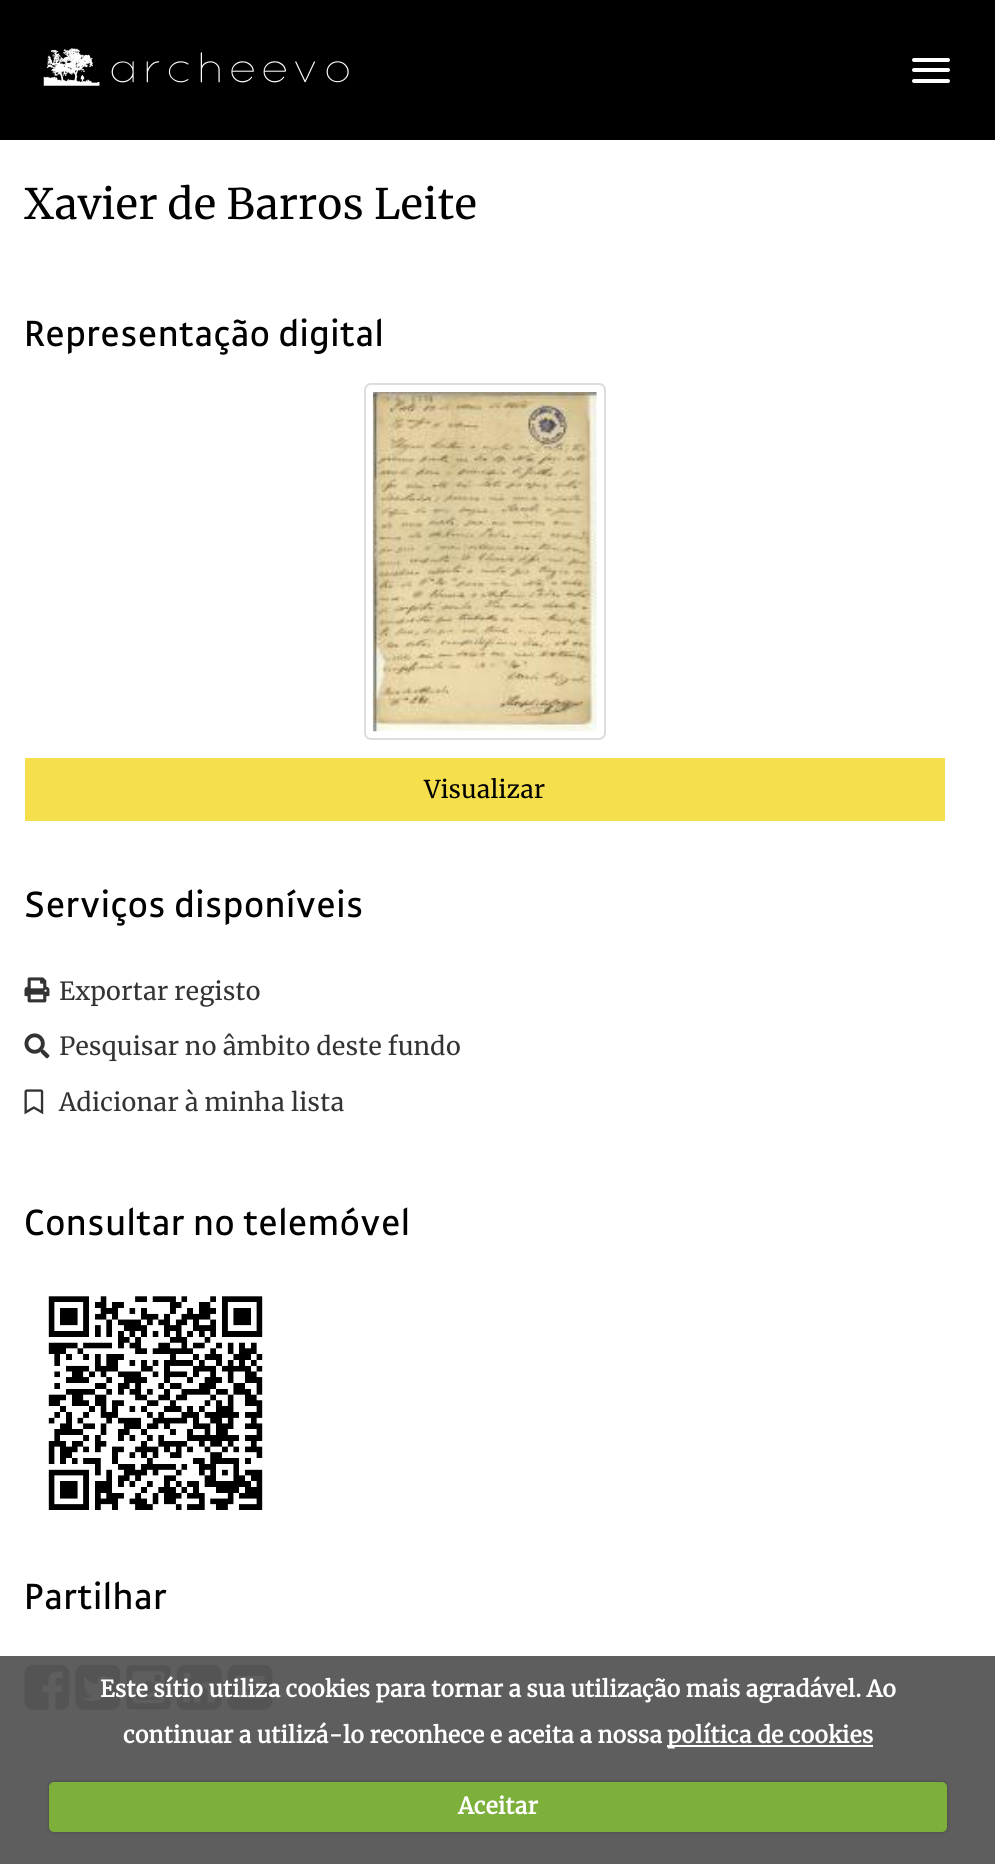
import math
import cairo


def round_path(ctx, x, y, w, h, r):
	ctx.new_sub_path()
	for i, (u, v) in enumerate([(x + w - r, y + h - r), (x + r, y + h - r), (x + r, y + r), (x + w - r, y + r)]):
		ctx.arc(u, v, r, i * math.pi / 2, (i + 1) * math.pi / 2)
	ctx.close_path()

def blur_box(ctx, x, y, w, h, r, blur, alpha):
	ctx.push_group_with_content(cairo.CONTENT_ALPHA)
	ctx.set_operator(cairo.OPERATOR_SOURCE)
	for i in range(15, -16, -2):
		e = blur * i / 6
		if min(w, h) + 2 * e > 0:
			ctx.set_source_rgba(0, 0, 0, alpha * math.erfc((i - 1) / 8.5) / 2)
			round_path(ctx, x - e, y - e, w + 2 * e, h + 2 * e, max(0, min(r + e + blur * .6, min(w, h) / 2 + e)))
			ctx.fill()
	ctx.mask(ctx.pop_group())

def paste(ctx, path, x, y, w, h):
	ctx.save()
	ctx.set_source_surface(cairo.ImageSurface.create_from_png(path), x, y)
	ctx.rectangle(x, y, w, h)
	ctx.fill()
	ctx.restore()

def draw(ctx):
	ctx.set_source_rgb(1, 1, 1)
	ctx.paint()
	ctx.set_source_rgb(0.369, 0.369, 0.369)
	ctx.rectangle(0, 1656, 995, 208)
	ctx.fill()
	ctx.set_source_rgb(0, 0, 0)
	ctx.rectangle(0, 0, 995, 140)
	ctx.fill()
	paste(ctx, 'media/1.png', 43, 48, 306, 38)
	ctx.set_source_rgb(1, 1, 1)
	round_path(ctx, 912, 58, 38, 4, 2)
	ctx.fill()
	round_path(ctx, 912, 68, 38, 4, 2)
	ctx.fill()
	round_path(ctx, 912, 79, 38, 4, 2)
	ctx.fill()
	ctx.select_font_face('Merriweather')
	ctx.set_font_size(42)
	ctx.set_source_rgb(0, 0, 0)
	ctx.move_to(24, 219)
	ctx.show_text('Xavier de Barros Leite')
	ctx.select_font_face('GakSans')
	ctx.set_font_size(39.4)
	ctx.move_to(24, 346)
	ctx.show_text('Representação digital')
	round_path(ctx, 365, 384, 240, 355, 6)
	ctx.set_source_rgb(0.867, 0.867, 0.867)
	ctx.stroke()
	paste(ctx, 'media/2.png', 372, 392, 225, 340)
	ctx.set_source_rgb(0.961, 0.875, 0.302)
	ctx.rectangle(25, 758, 920, 63)
	ctx.fill()
	ctx.select_font_face('Merriweather')
	ctx.set_font_size(24.5)
	ctx.set_source_rgb(0, 0, 0)
	ctx.move_to(424, 798)
	ctx.show_text('Visualizar')
	ctx.select_font_face('GakSans')
	ctx.set_font_size(39.4)
	ctx.move_to(24, 917)
	ctx.show_text('Serviços disponíveis')
	paste(ctx, 'media/3.png', 24, 977, 26, 26)
	ctx.select_font_face('Merriweather')
	ctx.set_font_size(25)
	ctx.set_source_rgb(0.2, 0.2, 0.2)
	ctx.move_to(59, 1000)
	ctx.show_text('Exportar registo')
	paste(ctx, 'media/4.png', 24, 1033, 26, 26)
	ctx.move_to(59, 1055)
	ctx.show_text('Pesquisar no âmbito deste fundo')
	paste(ctx, 'media/5.png', 24, 1089, 20, 26)
	ctx.move_to(59, 1111)
	ctx.show_text('Adicionar à minha lista')
	ctx.select_font_face('GakSans')
	ctx.set_font_size(39.4)
	ctx.set_source_rgb(0, 0, 0)
	ctx.move_to(24, 1235)
	ctx.show_text('Consultar no telemóvel')
	paste(ctx, 'media/6.png', 48, 1296, 215, 214)
	ctx.move_to(24, 1609)
	ctx.show_text('Partilhar')
	paste(ctx, 'media/7.png', 24, 1664, 46, 46)
	paste(ctx, 'media/8.png', 75, 1664, 46, 46)
	paste(ctx, 'media/9.png', 126, 1665, 45, 45)
	paste(ctx, 'media/10.png', 176, 1664, 46, 46)
	paste(ctx, 'media/11.png', 227, 1664, 46, 46)
	ctx.select_font_face('Merriweather', cairo.FONT_SLANT_NORMAL, cairo.FONT_WEIGHT_BOLD)
	ctx.set_font_size(22.75)
	ctx.set_source_rgb(1, 1, 1)
	ctx.move_to(100, 1697)
	ctx.show_text('Este sítio utiliza cookies para tornar a sua utilização mais agradável. Ao')
	ctx.move_to(123, 1743)
	ctx.show_text('continuar a utilizá-lo reconhece e aceita a nossa')
	ctx.rectangle(667, 1745, 206, 2)
	ctx.fill()
	ctx.move_to(667, 1743)
	ctx.show_text('política de cookies')
	ctx.set_source_rgb(0, 0, 0)
	blur_box(ctx, 49, 1782, 898, 50, 5, 2, 0.25)
	ctx.set_source_rgb(0.49, 0.686, 0.231)
	round_path(ctx, 49, 1782, 898, 50, 5)
	ctx.fill()
	ctx.set_source_rgb(1, 1, 1)
	ctx.move_to(458, 1814)
	ctx.show_text('Aceitar')


surface = cairo.ImageSurface(cairo.FORMAT_RGB24, 995, 1864)
ctx = cairo.Context(surface)
options = cairo.FontOptions()
options.set_hint_metrics(cairo.HINT_METRICS_OFF)
options.set_hint_style(cairo.HINT_STYLE_NONE)
ctx.set_font_options(options)
ctx.set_miter_limit(4)
draw(ctx)
surface.write_to_png('image.png')
